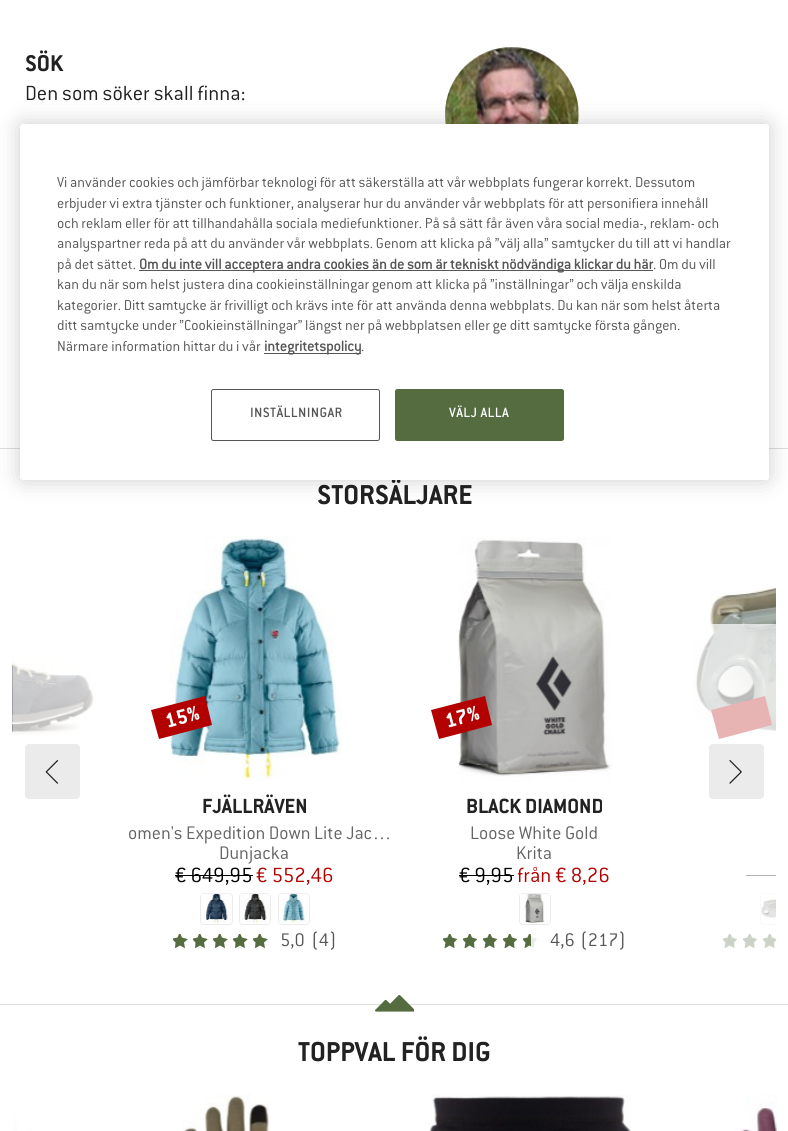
import math
import cairo


def write_spaced(ctx, x, y, s, letter, word):
	ctx.move_to(x, y)
	for ch in s:
		ctx.show_text(ch)
		ctx.rel_move_to(letter + word * (ch == ' '), 0)

def round_path(ctx, x, y, w, h, r):
	ctx.new_sub_path()
	for i, (u, v) in enumerate([(x + w - r, y + h - r), (x + r, y + h - r), (x + r, y + r), (x + w - r, y + r)]):
		ctx.arc(u, v, r, i * math.pi / 2, (i + 1) * math.pi / 2)
	ctx.close_path()

def blur_box(ctx, x, y, w, h, r, blur, alpha):
	ctx.push_group_with_content(cairo.CONTENT_ALPHA)
	ctx.set_operator(cairo.OPERATOR_SOURCE)
	for i in range(15, -16, -2):
		e = blur * i / 6
		if min(w, h) + 2 * e > 0:
			ctx.set_source_rgba(0, 0, 0, alpha * math.erfc((i - 1) / 8.5) / 2)
			round_path(ctx, x - e, y - e, w + 2 * e, h + 2 * e, max(0, min(r + e + blur * .6, min(w, h) / 2 + e)))
			ctx.fill()
	ctx.mask(ctx.pop_group())

def paste(ctx, path, x, y, w, h):
	ctx.save()
	ctx.set_source_surface(cairo.ImageSurface.create_from_png(path), x, y)
	ctx.rectangle(x, y, w, h)
	ctx.fill()
	ctx.restore()

def draw(ctx):
	ctx.set_source_rgb(1, 1, 1)
	ctx.paint()
	ctx.select_font_face('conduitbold', cairo.FONT_SLANT_NORMAL, cairo.FONT_WEIGHT_BOLD)
	ctx.set_font_size(25)
	ctx.set_source_rgb(0.133, 0.133, 0.133)
	ctx.move_to(25, 71)
	ctx.show_text('SÖK')
	ctx.select_font_face('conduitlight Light')
	ctx.set_font_size(22.5)
	ctx.move_to(25, 100)
	ctx.show_text('Den som söker skall finna:')
	paste(ctx, 'media/1.png', 445, 47, 134, 77)
	ctx.set_source_rgb(0.867, 0.867, 0.867)
	ctx.rectangle(0, 448, 788, 1)
	ctx.fill()
	ctx.select_font_face('conduitbold', cairo.FONT_SLANT_NORMAL, cairo.FONT_WEIGHT_BOLD)
	ctx.set_font_size(30)
	ctx.set_source_rgb(0.133, 0.133, 0.133)
	ctx.move_to(317, 504)
	ctx.show_text('STORSÄLJARE')
	paste(ctx, 'media/4.png', 12, 654, 86, 83)
	ctx.set_source_rgba(1, 1, 1, 0.7)
	ctx.rectangle(13, 654, 85, 83)
	ctx.fill()
	paste(ctx, 'media/5.png', 693, 584, 83, 153)
	ctx.set_source_rgb(0.702, 0, 0)
	ctx.new_path()
	ctx.move_to(711, 710)
	ctx.line_to(765, 696)
	ctx.line_to(772, 725)
	ctx.line_to(719, 739)
	ctx.close_path()
	ctx.fill()
	ctx.set_source_rgb(0, 0, 0)
	ctx.rectangle(746, 875, 30, 1)
	ctx.fill()
	ctx.save()
	ctx.rectangle(13, 524, 763, 460)
	ctx.clip()
	round_path(ctx, 760.5, 893.5, 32, 31, 3.5)
	ctx.set_source_rgb(0.925, 0.918, 0.918)
	ctx.set_line_width(1)
	ctx.stroke()
	ctx.restore()
	paste(ctx, 'media/6.png', 761, 893, 15, 26)
	ctx.set_source_rgb(0.333, 0.424, 0.255)
	ctx.new_path()
	ctx.move_to(734.5, 948)
	ctx.line_to(734, 942.5)
	ctx.line_to(737, 939.5)
	ctx.line_to(737, 939)
	ctx.line_to(732, 937.5)
	ctx.line_to(730.5, 934)
	ctx.line_to(729, 934)
	ctx.line_to(727.5, 937.5)
	ctx.line_to(723, 938.5)
	ctx.line_to(723, 940)
	ctx.line_to(725.5, 942.5)
	ctx.line_to(724.5, 948)
	ctx.line_to(725.5, 948)
	ctx.line_to(729.5, 945.5)
	ctx.line_to(734, 948)
	ctx.close_path()
	ctx.move_to(754.5, 948)
	ctx.line_to(754, 942.5)
	ctx.line_to(757, 939.5)
	ctx.line_to(757, 939)
	ctx.line_to(752, 937.5)
	ctx.line_to(750.5, 934)
	ctx.line_to(749, 934)
	ctx.line_to(747.5, 937.5)
	ctx.line_to(743, 938.5)
	ctx.line_to(743, 940)
	ctx.line_to(745.5, 942.5)
	ctx.line_to(744.5, 948)
	ctx.line_to(745.5, 948)
	ctx.line_to(749.5, 945.5)
	ctx.line_to(754, 948)
	ctx.close_path()
	ctx.fill()
	ctx.save()
	ctx.rectangle(763, 934, 13, 15)
	ctx.clip()
	ctx.new_path()
	ctx.move_to(774.5, 948)
	ctx.line_to(774, 942.5)
	ctx.line_to(777, 939.5)
	ctx.line_to(777, 939)
	ctx.line_to(772, 937.5)
	ctx.line_to(770.5, 934)
	ctx.line_to(769, 934)
	ctx.line_to(767.5, 937.5)
	ctx.line_to(763, 938.5)
	ctx.line_to(763, 940)
	ctx.line_to(765.5, 942.5)
	ctx.line_to(764.5, 948)
	ctx.line_to(765.5, 948)
	ctx.line_to(769.5, 945.5)
	ctx.line_to(774, 948)
	ctx.close_path()
	ctx.fill()
	ctx.restore()
	ctx.set_source_rgba(1, 1, 1, 0.7)
	ctx.rectangle(693, 624, 83, 324)
	ctx.fill()
	ctx.set_source_rgb(0.925, 0.918, 0.918)
	round_path(ctx, 25, 744, 55, 55, 4)
	ctx.fill()
	paste(ctx, 'media/2.png', 45, 760, 14, 24)
	round_path(ctx, 709, 744, 55, 55, 4)
	ctx.fill()
	paste(ctx, 'media/3.png', 729, 760, 13, 24)
	paste(ctx, 'media/7.png', 169, 536, 173, 245)
	ctx.set_source_rgb(0.702, 0, 0)
	ctx.new_path()
	ctx.move_to(151, 710)
	ctx.line_to(205, 696)
	ctx.line_to(212, 725)
	ctx.line_to(159, 739)
	ctx.close_path()
	ctx.fill()
	ctx.set_font_size(22.5)
	ctx.set_source_rgb(1, 1, 1)
	ctx.save()
	ctx.translate(167, 728)
	ctx.rotate(-15 * math.pi / 180)
	ctx.move_to(0, 0)
	ctx.show_text('15%')
	ctx.restore()
	ctx.set_source_rgb(0.133, 0.133, 0.133)
	ctx.move_to(202, 813)
	ctx.show_text('FJÄLLRÄVEN')
	ctx.select_font_face('conduitlight Light')
	ctx.set_font_size(20)
	ctx.set_source_rgb(0.392, 0.392, 0.392)
	ctx.move_to(128, 839)
	ctx.show_text('omen\'s Expedition Down Lite Jac…')
	ctx.move_to(219, 859)
	ctx.show_text('Dunjacka')
	ctx.set_font_size(22.5)
	ctx.set_source_rgb(0, 0, 0)
	ctx.move_to(175, 882)
	ctx.show_text('€ 649,95')
	ctx.rectangle(175, 875, 78, 1)
	ctx.fill()
	ctx.set_source_rgb(0.702, 0, 0)
	ctx.move_to(256, 882)
	ctx.show_text('€ 552,46')
	round_path(ctx, 200.5, 893.5, 32, 31, 3.5)
	ctx.set_source_rgb(0.925, 0.918, 0.918)
	ctx.set_line_width(1)
	ctx.stroke()
	paste(ctx, 'media/8.png', 201, 893, 30, 30)
	round_path(ctx, 239.5, 893.5, 31, 31, 3.5)
	ctx.stroke()
	paste(ctx, 'media/9.png', 240, 893, 30, 31)
	round_path(ctx, 278.5, 893.5, 31, 31, 3.5)
	ctx.stroke()
	paste(ctx, 'media/10.png', 279, 893, 30, 31)
	ctx.set_source_rgb(0.333, 0.424, 0.255)
	ctx.new_path()
	ctx.move_to(184.5, 948)
	ctx.line_to(185, 948)
	ctx.line_to(184, 942.5)
	ctx.line_to(187.5, 939.5)
	ctx.line_to(187.5, 939)
	ctx.line_to(182, 937.5)
	ctx.line_to(180.5, 934)
	ctx.line_to(179, 934)
	ctx.line_to(177.5, 937.5)
	ctx.line_to(173, 938.5)
	ctx.line_to(173, 940)
	ctx.line_to(175.5, 942.5)
	ctx.line_to(175, 948)
	ctx.line_to(175.5, 948)
	ctx.line_to(180, 945.5)
	ctx.close_path()
	ctx.move_to(204.5, 948)
	ctx.line_to(205, 948)
	ctx.line_to(204, 942.5)
	ctx.line_to(207.5, 939.5)
	ctx.line_to(207.5, 939)
	ctx.line_to(202, 937.5)
	ctx.line_to(200.5, 934)
	ctx.line_to(199, 934)
	ctx.line_to(197.5, 937.5)
	ctx.line_to(193, 938.5)
	ctx.line_to(193, 940)
	ctx.line_to(195.5, 942.5)
	ctx.line_to(195, 948)
	ctx.line_to(195.5, 948)
	ctx.line_to(200, 945.5)
	ctx.close_path()
	ctx.move_to(224.5, 948)
	ctx.line_to(225, 948)
	ctx.line_to(224, 942.5)
	ctx.line_to(227.5, 939.5)
	ctx.line_to(227.5, 939)
	ctx.line_to(222, 937.5)
	ctx.line_to(220.5, 934)
	ctx.line_to(219, 934)
	ctx.line_to(217.5, 937.5)
	ctx.line_to(213, 938.5)
	ctx.line_to(213, 940)
	ctx.line_to(215.5, 942.5)
	ctx.line_to(215, 948)
	ctx.line_to(215.5, 948)
	ctx.line_to(220, 945.5)
	ctx.close_path()
	ctx.fill()
	ctx.new_path()
	ctx.move_to(244.5, 948)
	ctx.line_to(245, 948)
	ctx.line_to(244, 942.5)
	ctx.line_to(247.5, 939.5)
	ctx.line_to(247.5, 939)
	ctx.line_to(242, 937.5)
	ctx.line_to(240.5, 934)
	ctx.line_to(239, 934)
	ctx.line_to(237.5, 937.5)
	ctx.line_to(233, 938.5)
	ctx.line_to(233, 940)
	ctx.line_to(235.5, 942.5)
	ctx.line_to(235, 948)
	ctx.line_to(235.5, 948)
	ctx.line_to(240, 945.5)
	ctx.close_path()
	ctx.move_to(264.5, 948)
	ctx.line_to(265, 948)
	ctx.line_to(264, 942.5)
	ctx.line_to(267.5, 939.5)
	ctx.line_to(267.5, 939)
	ctx.line_to(262, 937.5)
	ctx.line_to(260.5, 934)
	ctx.line_to(259, 934)
	ctx.line_to(257.5, 937.5)
	ctx.line_to(253, 938.5)
	ctx.line_to(253, 940)
	ctx.line_to(255.5, 942.5)
	ctx.line_to(255, 948)
	ctx.line_to(255.5, 948)
	ctx.line_to(260, 945.5)
	ctx.close_path()
	ctx.fill()
	ctx.set_font_size(20)
	ctx.set_source_rgb(0.333, 0.333, 0.333)
	ctx.move_to(280, 946)
	ctx.show_text('5,0')
	ctx.move_to(311, 946)
	ctx.show_text('(4)')
	paste(ctx, 'media/11.png', 458, 537, 154, 244)
	ctx.set_source_rgb(0.702, 0, 0)
	ctx.new_path()
	ctx.move_to(431, 710)
	ctx.line_to(485, 696)
	ctx.line_to(492, 725)
	ctx.line_to(439, 739)
	ctx.close_path()
	ctx.fill()
	ctx.select_font_face('conduitbold', cairo.FONT_SLANT_NORMAL, cairo.FONT_WEIGHT_BOLD)
	ctx.set_font_size(22.5)
	ctx.set_source_rgb(1, 1, 1)
	ctx.save()
	ctx.translate(447, 728)
	ctx.rotate(-15 * math.pi / 180)
	ctx.move_to(0, 0)
	ctx.show_text('17%')
	ctx.restore()
	ctx.set_source_rgb(0.133, 0.133, 0.133)
	ctx.move_to(466, 813)
	ctx.show_text('BLACK DIAMOND')
	ctx.select_font_face('conduitlight Light')
	ctx.set_font_size(20)
	ctx.set_source_rgb(0.392, 0.392, 0.392)
	ctx.move_to(470, 839)
	ctx.show_text('Loose White Gold')
	ctx.move_to(516, 859)
	ctx.show_text('Krita')
	ctx.set_font_size(22.5)
	ctx.set_source_rgb(0, 0, 0)
	ctx.move_to(459, 882)
	ctx.show_text('€ 9,95')
	ctx.rectangle(459, 875, 55, 1)
	ctx.fill()
	ctx.set_source_rgb(0.702, 0, 0)
	ctx.move_to(517, 882)
	ctx.show_text('från € 8,26')
	round_path(ctx, 519.5, 893.5, 31, 31, 3.5)
	ctx.set_source_rgb(0.925, 0.918, 0.918)
	ctx.stroke()
	paste(ctx, 'media/12.png', 520, 893, 30, 30)
	ctx.set_source_rgb(0.333, 0.424, 0.255)
	ctx.new_path()
	ctx.move_to(454.5, 948)
	ctx.line_to(454, 942.5)
	ctx.line_to(457, 939.5)
	ctx.line_to(457, 939)
	ctx.line_to(452, 937.5)
	ctx.line_to(450.5, 934)
	ctx.line_to(449, 934)
	ctx.line_to(447.5, 937.5)
	ctx.line_to(443, 938.5)
	ctx.line_to(443, 940)
	ctx.line_to(445.5, 942.5)
	ctx.line_to(444.5, 948)
	ctx.line_to(445.5, 948)
	ctx.line_to(449.5, 945.5)
	ctx.line_to(454, 948)
	ctx.close_path()
	ctx.move_to(474.5, 948)
	ctx.line_to(474, 942.5)
	ctx.line_to(477, 939.5)
	ctx.line_to(477, 939)
	ctx.line_to(472, 937.5)
	ctx.line_to(470.5, 934)
	ctx.line_to(469, 934)
	ctx.line_to(467.5, 937.5)
	ctx.line_to(463, 938.5)
	ctx.line_to(463, 940)
	ctx.line_to(465.5, 942.5)
	ctx.line_to(464.5, 948)
	ctx.line_to(465.5, 948)
	ctx.line_to(469.5, 945.5)
	ctx.line_to(474, 948)
	ctx.close_path()
	ctx.move_to(494.5, 948)
	ctx.line_to(494, 942.5)
	ctx.line_to(497, 939.5)
	ctx.line_to(497, 939)
	ctx.line_to(492, 937.5)
	ctx.line_to(490.5, 934)
	ctx.line_to(489, 934)
	ctx.line_to(487.5, 937.5)
	ctx.line_to(483, 938.5)
	ctx.line_to(483, 940)
	ctx.line_to(485.5, 942.5)
	ctx.line_to(484.5, 948)
	ctx.line_to(485.5, 948)
	ctx.line_to(489.5, 945.5)
	ctx.line_to(494, 948)
	ctx.close_path()
	ctx.fill()
	ctx.new_path()
	ctx.move_to(514.5, 948)
	ctx.line_to(514, 942.5)
	ctx.line_to(517, 939.5)
	ctx.line_to(517, 939)
	ctx.line_to(512, 937.5)
	ctx.line_to(510.5, 934)
	ctx.line_to(509, 934)
	ctx.line_to(507.5, 937.5)
	ctx.line_to(503, 938.5)
	ctx.line_to(503, 940)
	ctx.line_to(505.5, 942.5)
	ctx.line_to(504.5, 948)
	ctx.line_to(505.5, 948)
	ctx.line_to(509.5, 945.5)
	ctx.line_to(514, 948)
	ctx.close_path()
	ctx.move_to(530.5, 934)
	ctx.line_to(531, 935.5)
	ctx.line_to(531, 946.5)
	ctx.line_to(529.5, 945.5)
	ctx.line_to(525, 948)
	ctx.line_to(524.5, 948)
	ctx.line_to(525.5, 942.5)
	ctx.line_to(523, 940)
	ctx.line_to(523, 938.5)
	ctx.line_to(527.5, 937.5)
	ctx.line_to(529, 934)
	ctx.close_path()
	ctx.fill()
	ctx.set_source_rgb(0.925, 0.918, 0.918)
	ctx.new_path()
	ctx.move_to(534.5, 948)
	ctx.line_to(534, 942.5)
	ctx.line_to(537, 939.5)
	ctx.line_to(537, 939)
	ctx.line_to(537, 938.5)
	ctx.line_to(532, 937.5)
	ctx.line_to(531, 935.5)
	ctx.line_to(531, 946.5)
	ctx.line_to(534, 948)
	ctx.close_path()
	ctx.fill()
	ctx.set_font_size(20)
	ctx.set_source_rgb(0.333, 0.333, 0.333)
	ctx.move_to(550, 946)
	ctx.show_text('4,6')
	ctx.move_to(580, 946)
	ctx.show_text('(217)')
	ctx.set_source_rgb(0.867, 0.867, 0.867)
	ctx.rectangle(0, 1004, 788, 1)
	ctx.fill()
	paste(ctx, 'media/13.png', 375, 995, 39, 17)
	ctx.select_font_face('conduitbold', cairo.FONT_SLANT_NORMAL, cairo.FONT_WEIGHT_BOLD)
	ctx.set_font_size(30)
	ctx.set_source_rgb(0.133, 0.133, 0.133)
	ctx.move_to(298, 1061)
	ctx.show_text('TOPPVAL FÖR DIG')
	paste(ctx, 'media/14.png', 14, 1112, 3, 19)
	paste(ctx, 'media/15.png', 182, 1094, 88, 37)
	paste(ctx, 'media/16.png', 429, 1094, 202, 37)
	paste(ctx, 'media/17.png', 735, 1094, 42, 37)
	ctx.set_source_rgb(0, 0, 0)
	blur_box(ctx, 20, 124, 749, 356, 3, 11, 0.2)
	ctx.set_source_rgb(1, 1, 1)
	round_path(ctx, 20, 124, 749, 356, 3)
	ctx.fill()
	ctx.select_font_face('conduitlight Light')
	ctx.set_font_size(15.75)
	ctx.set_source_rgb(0.333, 0.333, 0.333)
	for x, y, s in [
		(57, 187, 'Vi använder cookies och jämförbar teknologi för att säkerställa att vår webbplats fungerar korrekt. Dessutom'),
		(57, 208, 'erbjuder vi extra tjänster och funktioner, analyserar hur du använder vår webbplats för att personifiera innehåll'),
		(57, 228, 'och reklam eller för att tillhandahålla sociala mediefunktioner. På så sätt får även våra social media-, reklam- och'),
		(57, 248, 'analyspartner reda på att du använder vår webbplats. Genom att klicka på ”välj alla” samtycker du till att vi handlar'),
		(57, 269, 'på det sättet.'),
	]:
		ctx.move_to(x, y)
		ctx.show_text(s)
	ctx.rectangle(139, 270, 514, 1)
	ctx.fill()
	ctx.select_font_face('conduitlight', cairo.FONT_SLANT_NORMAL, cairo.FONT_WEIGHT_BOLD)
	ctx.move_to(139, 269)
	ctx.show_text('Om du inte vill acceptera andra cookies än de som är tekniskt nödvändiga klickar du här')
	ctx.select_font_face('conduitlight Light')
	for x, y, s in [
		(653, 269, '. Om du vill'),
		(57, 289, 'kan du när som helst justera dina cookieinställningar genom att klicka på ”inställningar” och välja enskilda'),
		(57, 310, 'kategorier. Ditt samtycke är frivilligt och krävs inte för att använda denna webbplats. Du kan när som helst återta'),
		(57, 330, 'ditt samtycke under ”Cookieinställningar” längst ner på webbplatsen eller ge ditt samtycke första gången.'),
		(57, 351, 'Närmare information hittar du i vår'),
	]:
		ctx.move_to(x, y)
		ctx.show_text(s)
	ctx.rectangle(264, 353, 97, 1)
	ctx.fill()
	ctx.select_font_face('conduitlight', cairo.FONT_SLANT_NORMAL, cairo.FONT_WEIGHT_BOLD)
	ctx.move_to(264, 351)
	ctx.show_text('integritetspolicy')
	ctx.select_font_face('conduitlight Light')
	ctx.move_to(361, 351)
	ctx.show_text('.')
	round_path(ctx, 211.5, 389.5, 168, 51, 2)
	ctx.stroke()
	ctx.select_font_face('conduitlight', cairo.FONT_SLANT_NORMAL, cairo.FONT_WEIGHT_BOLD)
	ctx.set_font_size(14.25)
	write_spaced(ctx, 250, 417, 'INSTÄLLNINGAR', 0.75, 0)
	ctx.set_source_rgb(0.333, 0.424, 0.255)
	round_path(ctx, 395.5, 389.5, 168, 51, 2)
	ctx.fill_preserve()
	ctx.stroke()
	ctx.set_source_rgb(1, 1, 1)
	write_spaced(ctx, 449, 417, 'VÄLJ ALLA', 0.75, 0)


surface = cairo.ImageSurface(cairo.FORMAT_RGB24, 788, 1131)
ctx = cairo.Context(surface)
options = cairo.FontOptions()
options.set_hint_metrics(cairo.HINT_METRICS_OFF)
options.set_hint_style(cairo.HINT_STYLE_NONE)
ctx.set_font_options(options)
ctx.set_miter_limit(4)
draw(ctx)
surface.write_to_png('image.png')
